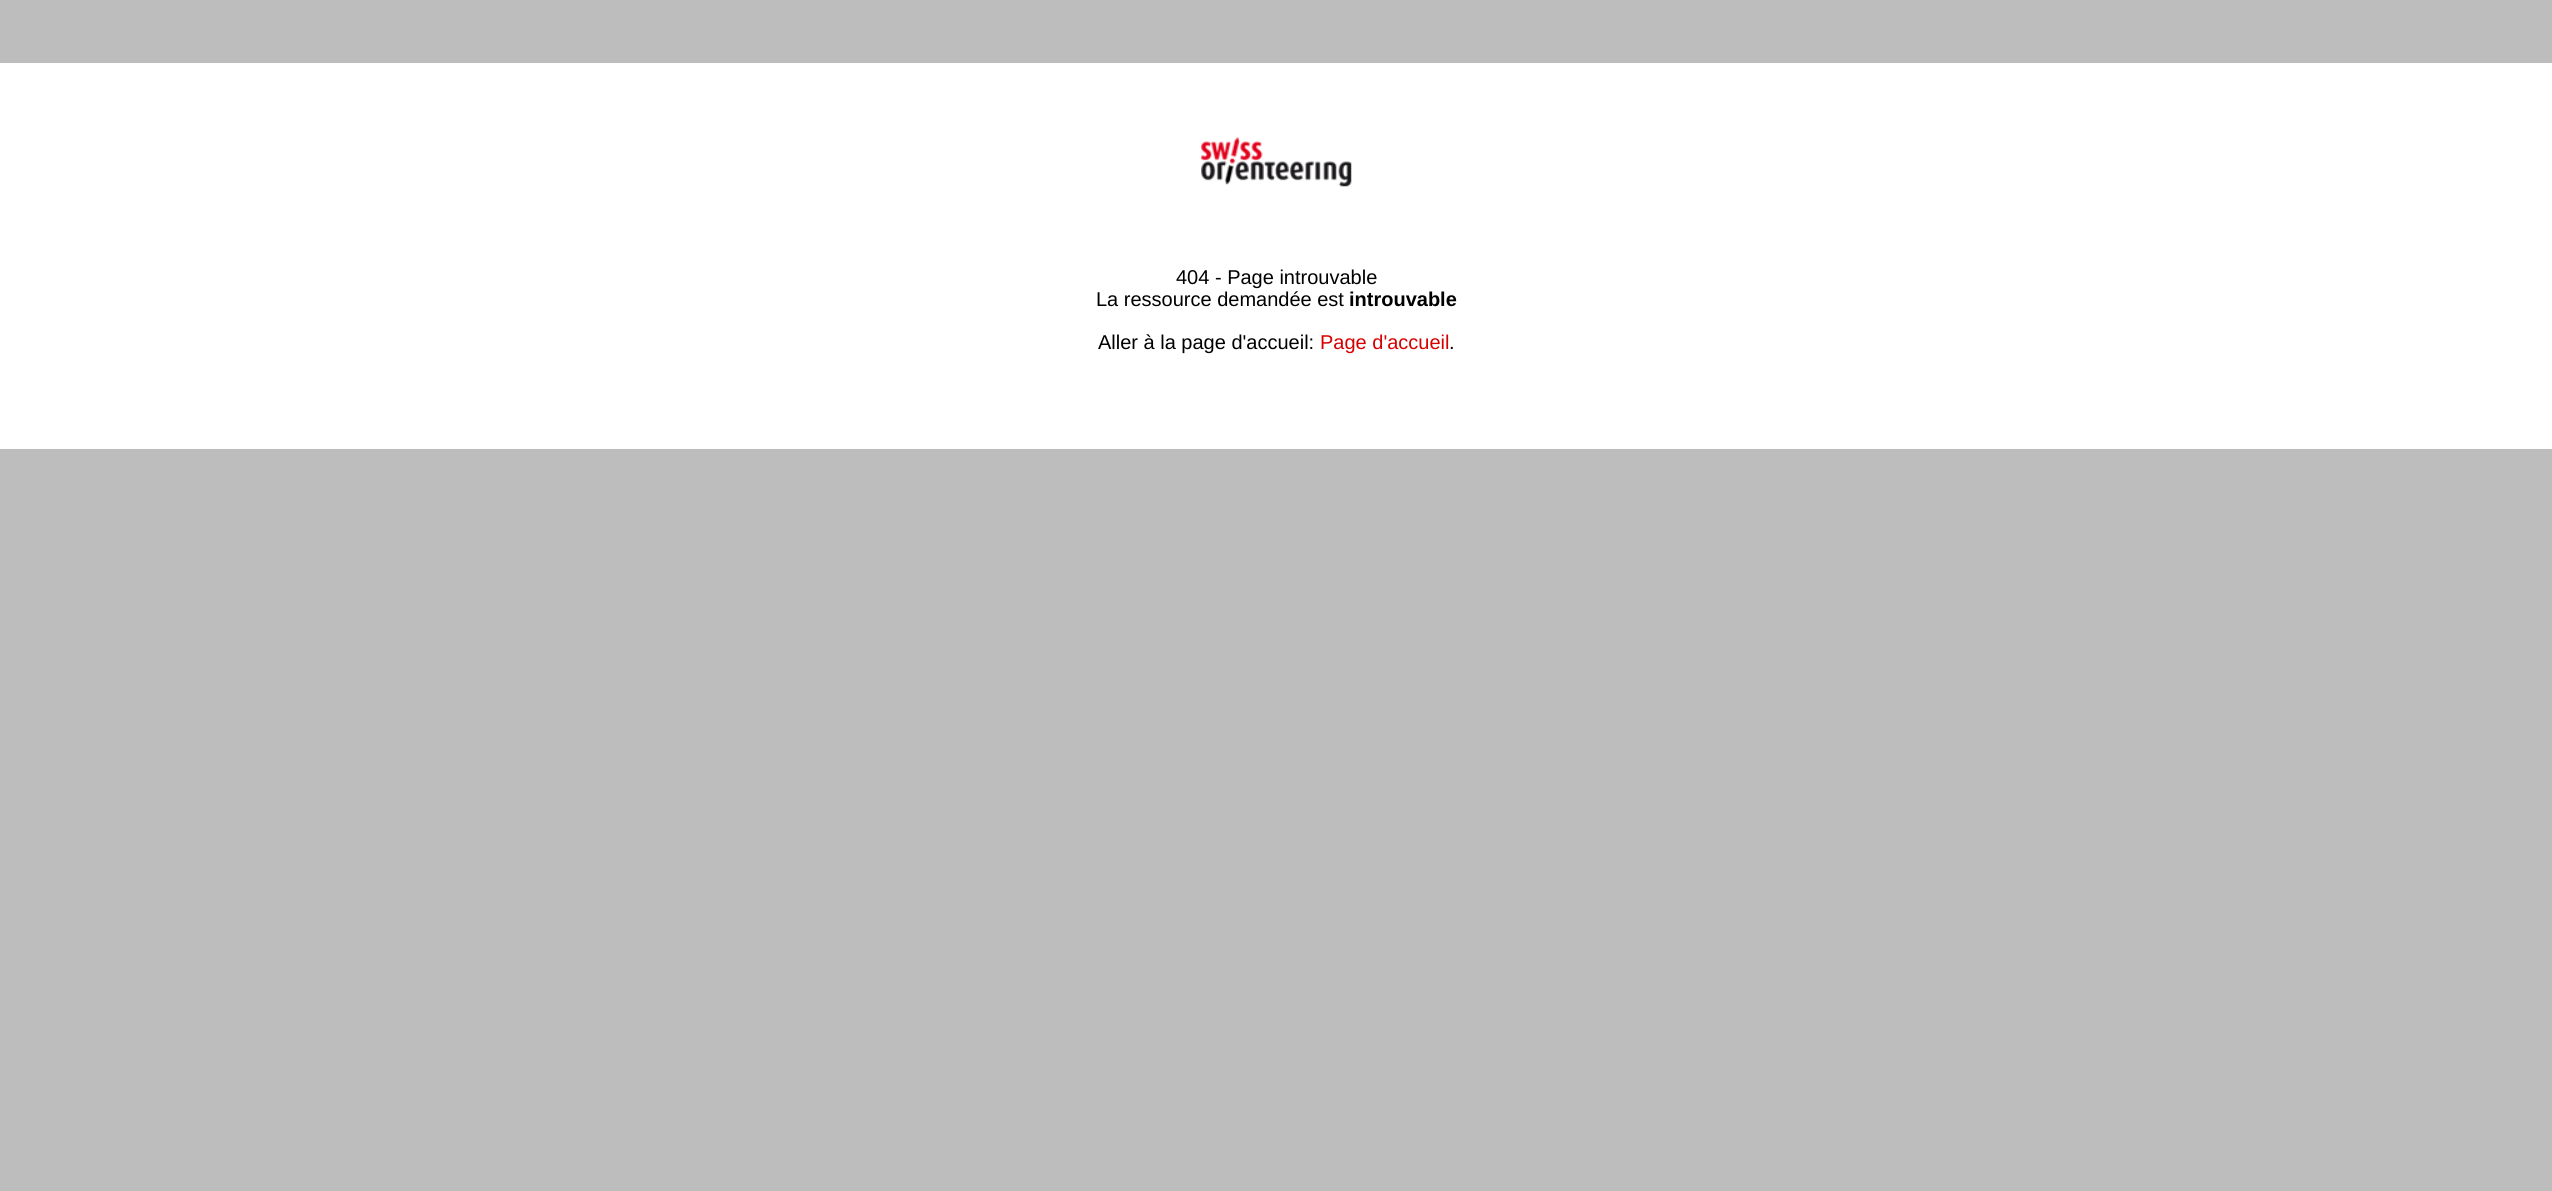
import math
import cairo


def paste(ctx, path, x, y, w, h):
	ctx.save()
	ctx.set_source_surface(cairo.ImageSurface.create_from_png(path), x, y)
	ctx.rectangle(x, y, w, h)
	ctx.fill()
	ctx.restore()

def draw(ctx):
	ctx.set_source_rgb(0.741, 0.741, 0.741)
	ctx.paint()
	ctx.set_source_rgb(1, 1, 1)
	ctx.rectangle(0, 63, 2552, 386)
	ctx.fill()
	paste(ctx, 'media/1.png', 1201, 137, 151, 50)
	ctx.select_font_face('Liberation Sans')
	ctx.set_font_size(20)
	ctx.set_source_rgb(0, 0, 0)
	ctx.move_to(1176, 284)
	ctx.show_text('404 - Page introuvable')
	ctx.move_to(1096, 306)
	ctx.show_text('La ressource demandée est')
	ctx.select_font_face('Liberation Sans', cairo.FONT_SLANT_NORMAL, cairo.FONT_WEIGHT_BOLD)
	ctx.move_to(1349, 306)
	ctx.show_text('introuvable')
	ctx.select_font_face('Liberation Sans')
	ctx.move_to(1098, 349)
	ctx.show_text('Aller à la page d\'accueil:')
	ctx.set_source_rgb(0.839, 0, 0)
	ctx.move_to(1320, 349)
	ctx.show_text('Page d\'accueil')
	ctx.set_source_rgb(0, 0, 0)
	ctx.move_to(1449, 349)
	ctx.show_text('.')


surface = cairo.ImageSurface(cairo.FORMAT_RGB24, 2552, 1191)
ctx = cairo.Context(surface)
options = cairo.FontOptions()
options.set_hint_metrics(cairo.HINT_METRICS_OFF)
options.set_hint_style(cairo.HINT_STYLE_NONE)
ctx.set_font_options(options)
ctx.set_miter_limit(4)
draw(ctx)
surface.write_to_png('image.png')
